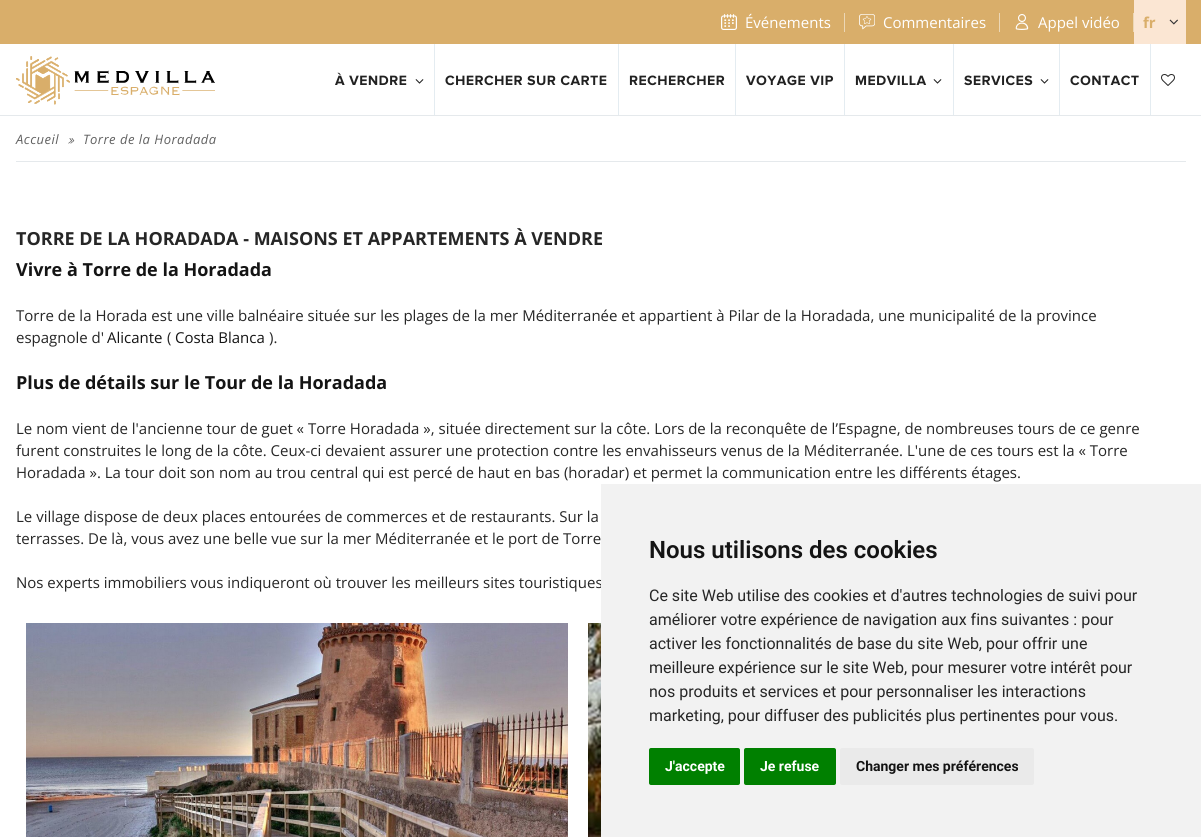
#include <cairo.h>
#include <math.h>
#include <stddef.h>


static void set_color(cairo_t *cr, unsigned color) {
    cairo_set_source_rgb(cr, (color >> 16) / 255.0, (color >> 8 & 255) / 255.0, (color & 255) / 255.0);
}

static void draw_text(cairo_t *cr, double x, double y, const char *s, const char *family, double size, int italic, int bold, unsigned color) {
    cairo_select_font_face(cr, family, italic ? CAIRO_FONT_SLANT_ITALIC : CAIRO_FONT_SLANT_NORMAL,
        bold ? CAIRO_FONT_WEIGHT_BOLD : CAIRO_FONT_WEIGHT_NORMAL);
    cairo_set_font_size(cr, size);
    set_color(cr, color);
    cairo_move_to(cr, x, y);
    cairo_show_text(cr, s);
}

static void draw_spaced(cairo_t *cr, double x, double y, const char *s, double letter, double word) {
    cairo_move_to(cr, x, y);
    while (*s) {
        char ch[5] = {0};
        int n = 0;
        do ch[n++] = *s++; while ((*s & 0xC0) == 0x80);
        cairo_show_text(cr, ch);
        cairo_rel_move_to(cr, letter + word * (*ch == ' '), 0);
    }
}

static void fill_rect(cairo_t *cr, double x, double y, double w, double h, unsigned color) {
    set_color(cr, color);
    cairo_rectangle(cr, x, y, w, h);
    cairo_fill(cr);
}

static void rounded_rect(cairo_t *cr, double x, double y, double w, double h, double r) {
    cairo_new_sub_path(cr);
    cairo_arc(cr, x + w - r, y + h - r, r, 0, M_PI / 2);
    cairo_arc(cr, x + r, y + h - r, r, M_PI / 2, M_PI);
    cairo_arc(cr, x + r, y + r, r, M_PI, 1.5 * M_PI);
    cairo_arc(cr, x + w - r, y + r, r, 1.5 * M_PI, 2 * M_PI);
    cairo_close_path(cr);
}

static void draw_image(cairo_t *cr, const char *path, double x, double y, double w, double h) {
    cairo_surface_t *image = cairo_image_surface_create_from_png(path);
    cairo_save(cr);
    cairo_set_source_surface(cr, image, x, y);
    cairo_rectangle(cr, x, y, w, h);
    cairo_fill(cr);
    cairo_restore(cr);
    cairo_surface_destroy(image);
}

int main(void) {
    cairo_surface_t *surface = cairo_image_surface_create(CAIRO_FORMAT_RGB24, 1201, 837);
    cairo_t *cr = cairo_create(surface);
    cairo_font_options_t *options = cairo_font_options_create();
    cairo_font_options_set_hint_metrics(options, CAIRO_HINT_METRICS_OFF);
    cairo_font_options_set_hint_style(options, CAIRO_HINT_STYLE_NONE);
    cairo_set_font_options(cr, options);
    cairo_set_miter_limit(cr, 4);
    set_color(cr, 0xFFFFFF);
    cairo_paint(cr);
    fill_rect(cr, 0, 0, 1201, 44, 0xD9AE6A);
    draw_image(cr, "assets/img1.png", 721, 14, 16, 16);
    draw_text(cr, 745, 28, "Événements", "Open Sans", 15, 0, 0, 0xFFFFFF);
    fill_rect(cr, 844, 13, 1, 19, 0xECD7B5);
    draw_image(cr, "assets/img2.png", 859, 14, 16, 16);
    draw_text(cr, 883, 28, "Commentaires", "Open Sans", 15, 0, 0, 0xFFFFFF);
    fill_rect(cr, 999, 13, 1, 19, 0xECD7B5);
    draw_image(cr, "assets/img3.png", 1015, 14, 14, 16);
    draw_text(cr, 1038, 28, "Appel vidéo", "Open Sans", 15, 0, 0, 0xFFFFFF);
    fill_rect(cr, 1133, 13, 1, 19, 0xECD7B5);
    fill_rect(cr, 1134, 0, 52, 44, 0xFBE6D3);
    draw_text(cr, 1143, 28, "fr", "Open Sans", 15, 0, 1, 0xD9AE6A);
    draw_image(cr, "assets/img4.png", 1169, 19, 9, 6);
    draw_image(cr, "assets/img5.png", 16, 56, 199, 49);
    draw_image(cr, "assets/img6.png", 335, 72, 72, 13);
    draw_image(cr, "assets/img7.png", 415, 79, 9, 5);
    fill_rect(cr, 434, 44, 1, 71, 0xE4ECF1);
    draw_image(cr, "assets/img8.png", 445, 75, 162, 11);
    fill_rect(cr, 618, 44, 1, 71, 0xE4ECF1);
    draw_image(cr, "assets/img9.png", 629, 75, 96, 11);
    fill_rect(cr, 735, 44, 1, 71, 0xE4ECF1);
    draw_image(cr, "assets/img10.png", 746, 75, 88, 11);
    fill_rect(cr, 844, 44, 1, 71, 0xE4ECF1);
    draw_image(cr, "assets/img11.png", 855, 75, 72, 10);
    draw_image(cr, "assets/img7.png", 933, 79, 9, 5);
    fill_rect(cr, 953, 44, 1, 71, 0xE4ECF1);
    draw_image(cr, "assets/img12.png", 964, 75, 69, 11);
    draw_image(cr, "assets/img7.png", 1040, 79, 9, 5);
    fill_rect(cr, 1059, 44, 1, 71, 0xE4ECF1);
    draw_image(cr, "assets/img13.png", 1070, 75, 69, 11);
    fill_rect(cr, 1150, 44, 1, 71, 0xE4ECF1);
    draw_image(cr, "assets/img14.png", 1161, 74, 14, 12);
    fill_rect(cr, 0, 115, 1201, 1, 0xE5E9EC);
    fill_rect(cr, 16, 161, 1170, 1, 0xE5E9EC);
    cairo_select_font_face(cr, "Open Sans", CAIRO_FONT_SLANT_ITALIC, CAIRO_FONT_WEIGHT_NORMAL);
    cairo_set_font_size(cr, 13);
    set_color(cr, 0x616161);
    draw_spaced(cr, 16, 144, "Accueil", 0.5, 0);
    draw_image(cr, "assets/img15.png", 68, 138, 7, 6);
    draw_spaced(cr, 83, 144, "Torre de la Horadada", 0.5, 0);
    draw_text(cr, 16, 245, "TORRE DE LA HORADADA - MAISONS ET APPARTEMENTS À VENDRE", "Open Sans", 18, 0, 1, 0x262626);
    draw_text(cr, 16, 276, "Vivre à Torre de la Horadada", "Open Sans", 18, 0, 1, 0x141414);
    draw_text(cr, 16, 321, "Torre de la Horada est une ville balnéaire située sur les plages de la mer Méditerranée et appartient à Pilar de la Horadada, une municipalité de la province", "Open Sans", 15, 0, 0, 0x262626);
    draw_text(cr, 16, 343, "espagnole d'", "Open Sans", 15, 0, 0, 0x262626);
    draw_text(cr, 107, 343, "Alicante", "Open Sans", 15, 0, 0, 0x141414);
    draw_text(cr, 167, 343, "(", "Open Sans", 15, 0, 0, 0x262626);
    draw_text(cr, 175, 343, "Costa Blanca", "Open Sans", 15, 0, 0, 0x141414);
    draw_text(cr, 269, 343, ").", "Open Sans", 15, 0, 0, 0x262626);
    draw_text(cr, 16, 389, "Plus de détails sur le Tour de la Horadada", "Open Sans", 18, 0, 1, 0x141414);
    draw_text(cr, 16, 434, "Le nom vient de l'ancienne tour de guet « Torre Horadada », située directement sur la côte. Lors de la reconquête de l’Espagne, de nombreuses tours de ce genre", "Open Sans", 15, 0, 0, 0x262626);
    draw_text(cr, 16, 456, "furent construites le long de la côte. Ceux-ci devaient assurer une protection contre les envahisseurs venus de la Méditerranée. L'une de ces tours est la « Torre", "Open Sans", 15, 0, 0, 0x262626);
    draw_text(cr, 16, 478, "Horadada ». La tour doit son nom au trou central qui est percé de haut en bas (horadar) et permet la communication entre les différents étages.", "Open Sans", 15, 0, 0, 0x262626);
    draw_text(cr, 16, 522, "Le village dispose de deux places entourées de commerces et de restaurants. Sur la", "Open Sans", 15, 0, 0, 0x262626);
    draw_text(cr, 16, 544, "terrasses. De là, vous avez une belle vue sur la mer Méditerranée et le port de Torre", "Open Sans", 15, 0, 0, 0x262626);
    draw_text(cr, 16, 588, "Nos experts immobiliers vous indiqueront où trouver les meilleurs sites touristiques", "Open Sans", 15, 0, 0, 0x262626);
    draw_image(cr, "assets/img16.png", 26, 623, 542, 214);
    draw_image(cr, "assets/img17.png", 588, 623, 13, 214);
    fill_rect(cr, 601, 484, 600, 353, 0xF2F2F2);
    draw_text(cr, 649, 558, "Nous utilisons des cookies", "Roboto SemiBold", 24, 0, 0, 0x141414);
    draw_text(cr, 649, 601, "Ce site Web utilise des cookies et d'autres technologies de suivi pour", "Roboto", 16, 0, 0, 0x262626);
    draw_text(cr, 649, 625, "améliorer votre expérience de navigation aux fins suivantes : pour", "Roboto", 16, 0, 0, 0x262626);
    draw_text(cr, 649, 649, "activer les fonctionnalités de base du site Web, pour offrir une", "Roboto", 16, 0, 0, 0x262626);
    draw_text(cr, 649, 673, "meilleure expérience sur le site Web, pour mesurer votre intérêt pour", "Roboto", 16, 0, 0, 0x262626);
    draw_text(cr, 649, 697, "nos produits et services et pour personnaliser les interactions", "Roboto", 16, 0, 0, 0x262626);
    draw_text(cr, 649, 721, "marketing, pour diffuser des publicités plus pertinentes pour vous.", "Roboto", 16, 0, 0, 0x262626);
    set_color(cr, 0x008000);
    rounded_rect(cr, 649, 748, 91, 37, 2);
    cairo_fill(cr);
    draw_text(cr, 665, 771, "J'accepte", "Roboto", 14, 0, 1, 0xFFFFFF);
    set_color(cr, 0x008000);
    rounded_rect(cr, 744, 748, 92, 37, 2);
    cairo_fill(cr);
    draw_text(cr, 760, 771, "Je refuse", "Roboto", 14, 0, 1, 0xFFFFFF);
    set_color(cr, 0xEAEAEA);
    rounded_rect(cr, 840, 748, 194, 37, 2);
    cairo_fill(cr);
    draw_text(cr, 856, 771, "Changer mes préférences", "Roboto", 14, 0, 1, 0x141414);
    cairo_surface_write_to_png(surface, "output.png");
    cairo_font_options_destroy(options);
    cairo_destroy(cr);
    cairo_surface_destroy(surface);
    return 0;
}
